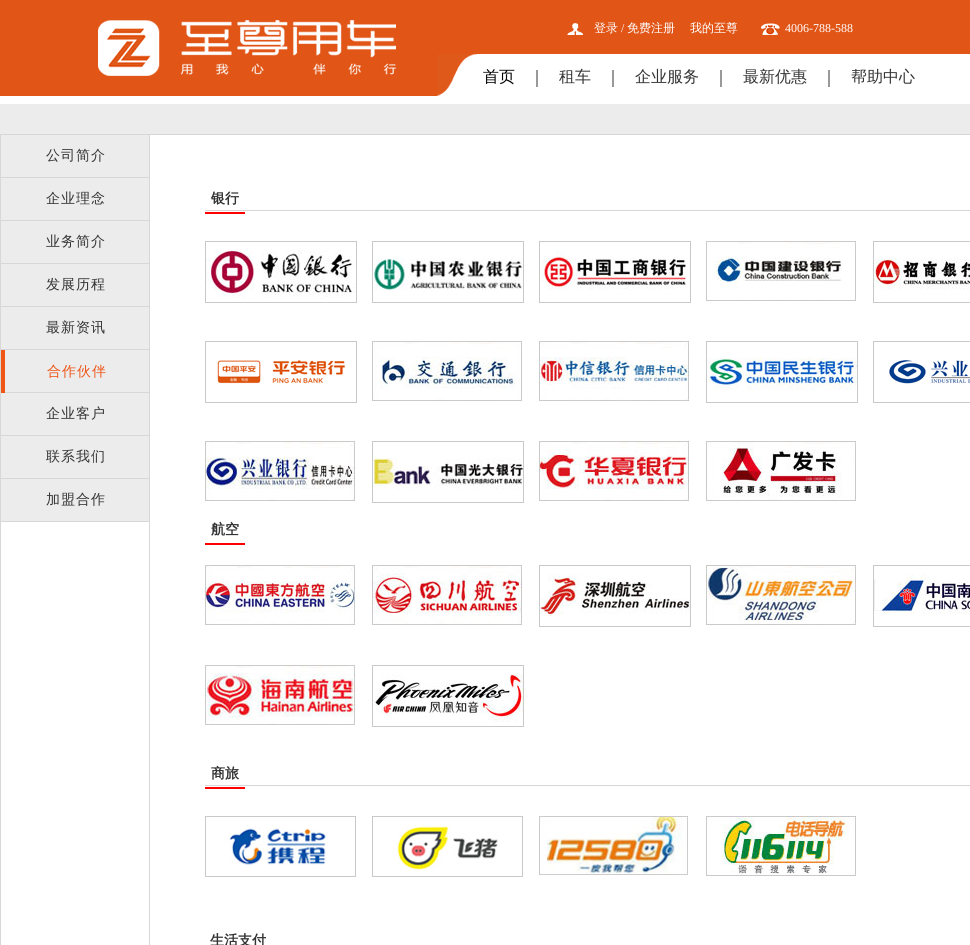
#include <cairo.h>
#include <math.h>
#include <stddef.h>


static void set_color(cairo_t *cr, unsigned color) {
    cairo_set_source_rgb(cr, (color >> 16) / 255.0, (color >> 8 & 255) / 255.0, (color & 255) / 255.0);
}

static void draw_text(cairo_t *cr, double x, double y, const char *s, const char *family, double size, int italic, int bold, unsigned color) {
    cairo_select_font_face(cr, family, italic ? CAIRO_FONT_SLANT_ITALIC : CAIRO_FONT_SLANT_NORMAL,
        bold ? CAIRO_FONT_WEIGHT_BOLD : CAIRO_FONT_WEIGHT_NORMAL);
    cairo_set_font_size(cr, size);
    set_color(cr, color);
    cairo_move_to(cr, x, y);
    cairo_show_text(cr, s);
}

static void draw_spaced(cairo_t *cr, double x, double y, const char *s, double letter, double word) {
    cairo_move_to(cr, x, y);
    while (*s) {
        char ch[5] = {0};
        int n = 0;
        do ch[n++] = *s++; while ((*s & 0xC0) == 0x80);
        cairo_show_text(cr, ch);
        cairo_rel_move_to(cr, letter + word * (*ch == ' '), 0);
    }
}

static void fill_rect(cairo_t *cr, double x, double y, double w, double h, unsigned color) {
    set_color(cr, color);
    cairo_rectangle(cr, x, y, w, h);
    cairo_fill(cr);
}

static void draw_image(cairo_t *cr, const char *path, double x, double y, double w, double h) {
    cairo_surface_t *image = cairo_image_surface_create_from_png(path);
    cairo_save(cr);
    cairo_set_source_surface(cr, image, x, y);
    cairo_rectangle(cr, x, y, w, h);
    cairo_fill(cr);
    cairo_restore(cr);
    cairo_surface_destroy(image);
}

int main(void) {
    cairo_surface_t *surface = cairo_image_surface_create(CAIRO_FORMAT_RGB24, 970, 945);
    cairo_t *cr = cairo_create(surface);
    cairo_font_options_t *options = cairo_font_options_create();
    cairo_font_options_set_hint_metrics(options, CAIRO_HINT_METRICS_OFF);
    cairo_font_options_set_hint_style(options, CAIRO_HINT_STYLE_NONE);
    cairo_set_font_options(cr, options);
    cairo_set_miter_limit(cr, 4);
    set_color(cr, 0xE15517);
    cairo_paint(cr);
    draw_image(cr, "assets/img1.png", 98, 20, 298, 56);
    draw_image(cr, "assets/img2.png", 567, 23, 16, 12);
    draw_text(cr, 594, 32, "登录", "WenQuanYi Zen Hei Medium", 12, 0, 0, 0xFFFFFF);
    draw_text(cr, 621, 32, "/", "Liberation Serif", 12, 0, 0, 0xFFFFFF);
    draw_text(cr, 627, 32, "免费注册", "WenQuanYi Zen Hei Medium", 12, 0, 0, 0xFFFFFF);
    draw_text(cr, 690, 32, "我的至尊", "WenQuanYi Zen Hei Medium", 12, 0, 0, 0xFFFFFF);
    draw_image(cr, "assets/img3.png", 761, 23, 19, 12);
    draw_text(cr, 785, 32, "4006-788-588", "Liberation Serif", 12, 0, 0, 0xFFFFFF);
    fill_rect(cr, 477, 54, 493, 42, 0xFFFFFF);
    draw_image(cr, "assets/img4.png", 437, 54, 40, 42);
    draw_text(cr, 483, 82, "首页", "WenQuanYi Zen Hei Medium", 16, 0, 0, 0x000000);
    fill_rect(cr, 536, 70, 2, 17, 0x999999);
    draw_text(cr, 559, 82, "租车", "WenQuanYi Zen Hei Medium", 16, 0, 0, 0x333333);
    fill_rect(cr, 612, 70, 2, 17, 0x999999);
    draw_text(cr, 635, 82, "企业服务", "WenQuanYi Zen Hei Medium", 16, 0, 0, 0x333333);
    fill_rect(cr, 720, 70, 2, 17, 0x999999);
    draw_text(cr, 743, 82, "最新优惠", "WenQuanYi Zen Hei Medium", 16, 0, 0, 0x333333);
    fill_rect(cr, 828, 70, 2, 17, 0x999999);
    draw_text(cr, 851, 82, "帮助中心", "WenQuanYi Zen Hei Medium", 16, 0, 0, 0x333333);
    fill_rect(cr, 0, 96, 970, 8, 0xFFFFFF);
    fill_rect(cr, 0, 104, 970, 30, 0xECECEC);
    fill_rect(cr, 1, 522, 148, 423, 0xFFFFFF);
    cairo_rectangle(cr, 0.5, 134.5, 149, 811);
    set_color(cr, 0xD7D7D7);
    cairo_set_line_width(cr, 1);
    cairo_stroke(cr);
    fill_rect(cr, 1, 135, 148, 42, 0xECECEC);
    fill_rect(cr, 1, 177, 148, 1, 0xD7D7D7);
    cairo_set_font_size(cr, 14);
    set_color(cr, 0x333333);
    draw_spaced(cr, 46, 160, "公司简介", 1, 0);
    fill_rect(cr, 1, 178, 148, 42, 0xECECEC);
    fill_rect(cr, 1, 220, 148, 1, 0xD7D7D7);
    set_color(cr, 0x333333);
    draw_spaced(cr, 46, 203, "企业理念", 1, 0);
    fill_rect(cr, 1, 221, 148, 42, 0xECECEC);
    fill_rect(cr, 1, 263, 148, 1, 0xD7D7D7);
    set_color(cr, 0x333333);
    draw_spaced(cr, 46, 246, "业务简介", 1, 0);
    fill_rect(cr, 1, 264, 148, 42, 0xECECEC);
    fill_rect(cr, 1, 306, 148, 1, 0xD7D7D7);
    set_color(cr, 0x333333);
    draw_spaced(cr, 46, 289, "发展历程", 1, 0);
    fill_rect(cr, 1, 307, 148, 42, 0xECECEC);
    fill_rect(cr, 1, 349, 148, 1, 0xD7D7D7);
    set_color(cr, 0x333333);
    draw_spaced(cr, 46, 332, "最新资讯", 1, 0);
    fill_rect(cr, 5, 350, 144, 42, 0xECECEC);
    fill_rect(cr, 1, 392, 148, 1, 0xD7D7D7);
    fill_rect(cr, 1, 350, 4, 43, 0xEE5517);
    draw_spaced(cr, 47, 376, "合作伙伴", 1, 0);
    fill_rect(cr, 1, 393, 148, 42, 0xECECEC);
    fill_rect(cr, 1, 435, 148, 1, 0xD7D7D7);
    set_color(cr, 0x333333);
    draw_spaced(cr, 46, 418, "企业客户", 1, 0);
    fill_rect(cr, 1, 436, 148, 42, 0xECECEC);
    fill_rect(cr, 1, 478, 148, 1, 0xD7D7D7);
    set_color(cr, 0x333333);
    draw_spaced(cr, 46, 461, "联系我们", 1, 0);
    fill_rect(cr, 1, 479, 148, 42, 0xECECEC);
    fill_rect(cr, 1, 521, 148, 1, 0xD7D7D7);
    set_color(cr, 0x333333);
    draw_spaced(cr, 46, 504, "加盟合作", 1, 0);
    fill_rect(cr, 150, 135, 820, 810, 0xFFFFFF);
    fill_rect(cr, 150, 134, 820, 1, 0xD7D7D7);
    fill_rect(cr, 205, 212, 40, 2, 0xFF0000);
    draw_text(cr, 211, 203, "银行", "WenQuanYi Zen Hei", 14, 0, 1, 0x333333);
    fill_rect(cr, 205, 210, 765, 1, 0xD7D7D7);
    cairo_rectangle(cr, 205.5, 241.5, 151, 61);
    set_color(cr, 0xC9C9C9);
    cairo_stroke(cr);
    draw_image(cr, "assets/img5.png", 206, 250, 150, 48);
    cairo_rectangle(cr, 372.5, 241.5, 151, 61);
    cairo_stroke(cr);
    draw_image(cr, "assets/img6.png", 373, 258, 150, 32);
    cairo_rectangle(cr, 539.5, 241.5, 151, 61);
    cairo_stroke(cr);
    draw_image(cr, "assets/img7.png", 540, 250, 150, 40);
    draw_image(cr, "assets/img8.png", 706, 241, 150, 60);
    cairo_rectangle(cr, 873.5, 241.5, 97, 61);
    cairo_stroke(cr);
    draw_image(cr, "assets/img9.png", 874, 258, 96, 32);
    cairo_rectangle(cr, 205.5, 341.5, 151, 61);
    cairo_stroke(cr);
    draw_image(cr, "assets/img10.png", 217, 360, 128, 29);
    draw_image(cr, "assets/img11.png", 372, 341, 150, 60);
    draw_image(cr, "assets/img12.png", 539, 341, 150, 60);
    cairo_rectangle(cr, 706.5, 341.5, 151, 61);
    cairo_stroke(cr);
    draw_image(cr, "assets/img13.png", 707, 358, 150, 32);
    cairo_rectangle(cr, 873.5, 341.5, 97, 61);
    cairo_stroke(cr);
    draw_image(cr, "assets/img14.png", 889, 360, 81, 25);
    draw_image(cr, "assets/img15.png", 205, 441, 150, 60);
    cairo_rectangle(cr, 372.5, 441.5, 151, 61);
    cairo_stroke(cr);
    draw_image(cr, "assets/img16.png", 373, 458, 150, 32);
    draw_image(cr, "assets/img17.png", 539, 441, 150, 60);
    draw_image(cr, "assets/img18.png", 706, 441, 150, 60);
    fill_rect(cr, 205, 543, 40, 2, 0xFF0000);
    draw_text(cr, 211, 534, "航空", "WenQuanYi Zen Hei", 14, 0, 1, 0x333333);
    draw_image(cr, "assets/img19.png", 205, 565, 150, 60);
    draw_image(cr, "assets/img20.png", 372, 565, 150, 60);
    cairo_rectangle(cr, 539.5, 565.5, 151, 61);
    set_color(cr, 0xC9C9C9);
    cairo_stroke(cr);
    draw_image(cr, "assets/img21.png", 540, 574, 150, 40);
    draw_image(cr, "assets/img22.png", 706, 565, 150, 60);
    cairo_rectangle(cr, 873.5, 565.5, 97, 61);
    cairo_stroke(cr);
    draw_image(cr, "assets/img23.png", 874, 574, 96, 40);
    draw_image(cr, "assets/img24.png", 205, 665, 150, 60);
    cairo_rectangle(cr, 372.5, 665.5, 151, 61);
    cairo_stroke(cr);
    draw_image(cr, "assets/img25.png", 373, 674, 150, 48);
    fill_rect(cr, 205, 787, 40, 2, 0xFF0000);
    draw_text(cr, 211, 778, "商旅", "WenQuanYi Zen Hei", 14, 0, 1, 0x333333);
    fill_rect(cr, 205, 785, 765, 1, 0xD7D7D7);
    cairo_rectangle(cr, 205.5, 816.5, 150, 60);
    set_color(cr, 0xC9C9C9);
    cairo_stroke(cr);
    draw_image(cr, "assets/img26.png", 229, 828, 97, 37);
    cairo_rectangle(cr, 372.5, 816.5, 150, 60);
    cairo_stroke(cr);
    draw_image(cr, "assets/img27.png", 397, 826, 101, 44);
    draw_image(cr, "assets/img28.png", 539, 816, 149, 59);
    draw_image(cr, "assets/img29.png", 706, 816, 150, 60);
    draw_text(cr, 210, 945, "生活支付", "WenQuanYi Zen Hei", 14, 0, 1, 0x333333);
    cairo_surface_write_to_png(surface, "output.png");
    cairo_font_options_destroy(options);
    cairo_destroy(cr);
    cairo_surface_destroy(surface);
    return 0;
}
